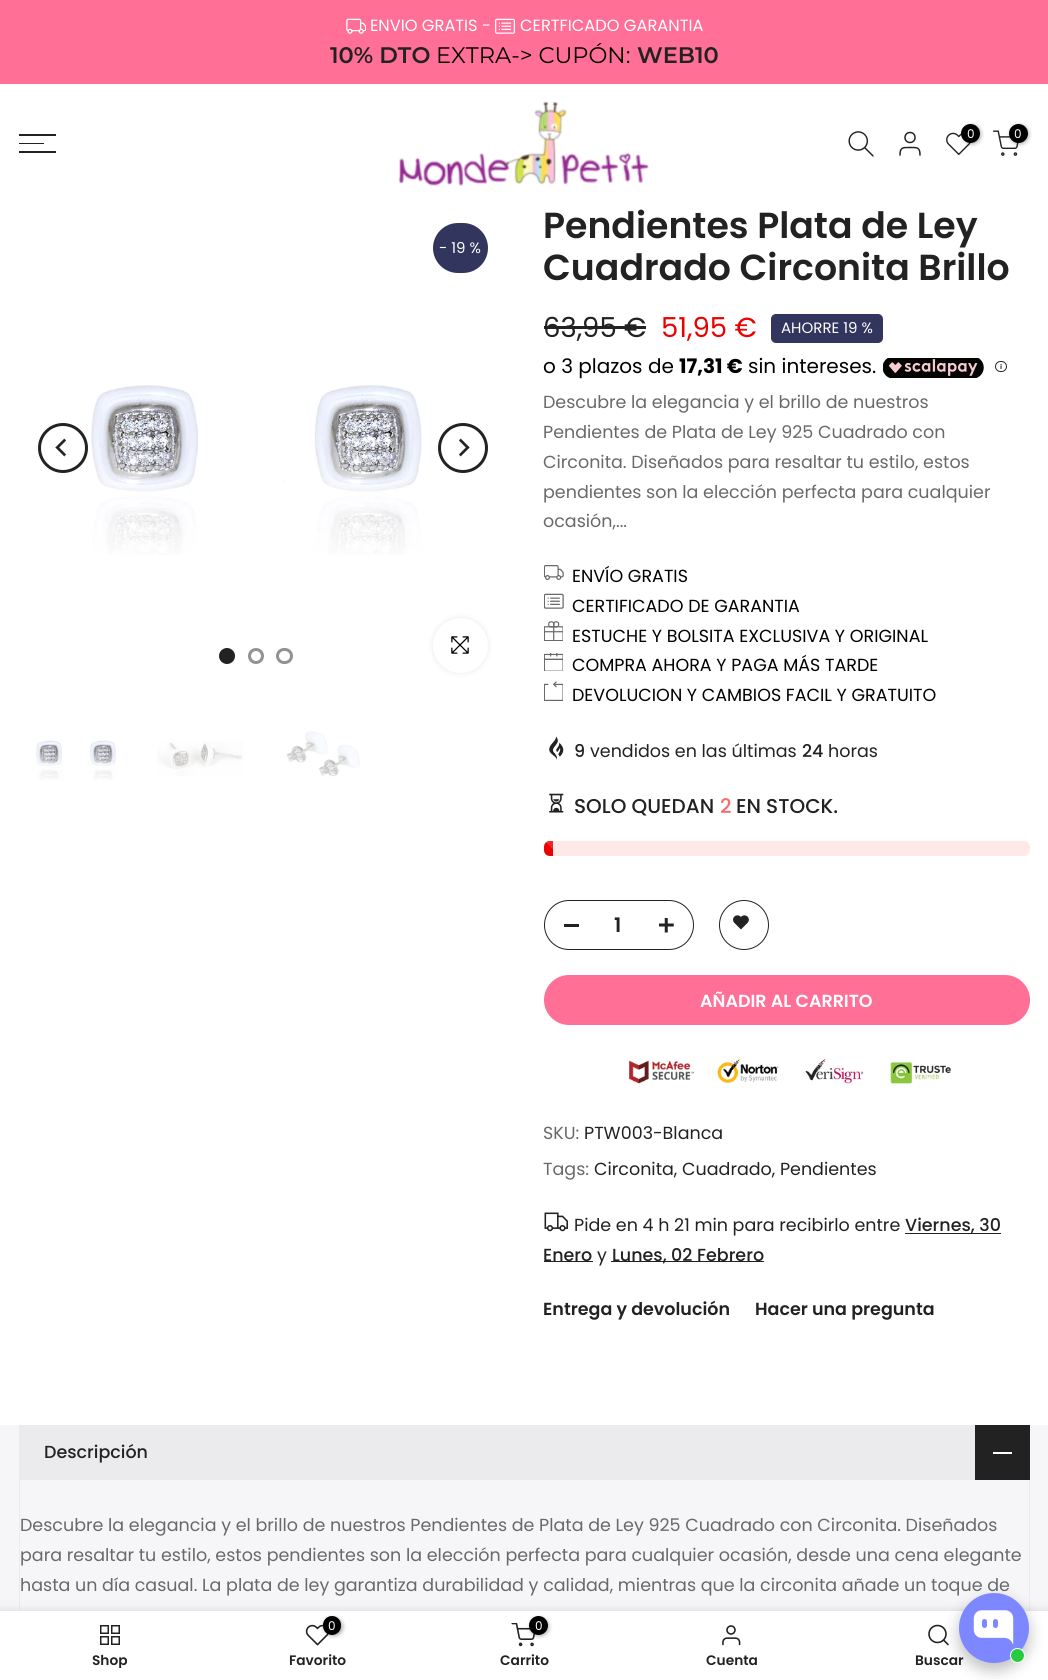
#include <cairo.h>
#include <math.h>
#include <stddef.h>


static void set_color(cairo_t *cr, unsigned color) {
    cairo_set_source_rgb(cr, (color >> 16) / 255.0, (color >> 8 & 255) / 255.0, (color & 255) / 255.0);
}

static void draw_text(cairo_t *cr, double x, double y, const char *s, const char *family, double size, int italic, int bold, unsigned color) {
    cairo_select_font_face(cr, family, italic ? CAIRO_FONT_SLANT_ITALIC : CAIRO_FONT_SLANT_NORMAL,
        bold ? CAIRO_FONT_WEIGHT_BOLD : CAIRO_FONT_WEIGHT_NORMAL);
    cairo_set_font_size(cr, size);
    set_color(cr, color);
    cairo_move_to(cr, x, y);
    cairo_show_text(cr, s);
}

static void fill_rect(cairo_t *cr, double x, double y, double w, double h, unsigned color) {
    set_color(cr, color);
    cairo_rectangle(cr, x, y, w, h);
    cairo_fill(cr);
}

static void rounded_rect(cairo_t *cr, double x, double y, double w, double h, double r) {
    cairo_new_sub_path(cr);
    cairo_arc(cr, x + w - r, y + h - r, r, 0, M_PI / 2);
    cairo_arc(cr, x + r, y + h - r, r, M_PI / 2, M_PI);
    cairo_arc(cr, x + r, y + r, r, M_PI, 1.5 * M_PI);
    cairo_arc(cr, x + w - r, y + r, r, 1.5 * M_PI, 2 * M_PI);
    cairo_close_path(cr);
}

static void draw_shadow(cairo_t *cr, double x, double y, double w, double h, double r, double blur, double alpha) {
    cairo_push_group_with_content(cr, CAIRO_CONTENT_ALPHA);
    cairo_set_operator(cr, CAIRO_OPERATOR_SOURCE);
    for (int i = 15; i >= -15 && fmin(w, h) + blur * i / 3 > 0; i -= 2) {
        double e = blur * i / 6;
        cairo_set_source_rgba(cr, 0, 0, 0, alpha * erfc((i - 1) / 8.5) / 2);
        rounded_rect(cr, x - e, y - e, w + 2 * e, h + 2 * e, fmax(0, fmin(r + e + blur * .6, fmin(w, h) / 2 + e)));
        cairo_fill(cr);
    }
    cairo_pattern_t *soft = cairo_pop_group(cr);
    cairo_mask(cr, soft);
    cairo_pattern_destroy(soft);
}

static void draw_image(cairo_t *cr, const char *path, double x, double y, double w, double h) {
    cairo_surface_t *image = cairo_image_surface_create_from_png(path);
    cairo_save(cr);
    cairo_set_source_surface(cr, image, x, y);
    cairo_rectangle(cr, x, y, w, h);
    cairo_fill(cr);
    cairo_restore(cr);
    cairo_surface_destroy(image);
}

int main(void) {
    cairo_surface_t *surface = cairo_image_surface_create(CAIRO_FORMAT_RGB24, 1048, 1680);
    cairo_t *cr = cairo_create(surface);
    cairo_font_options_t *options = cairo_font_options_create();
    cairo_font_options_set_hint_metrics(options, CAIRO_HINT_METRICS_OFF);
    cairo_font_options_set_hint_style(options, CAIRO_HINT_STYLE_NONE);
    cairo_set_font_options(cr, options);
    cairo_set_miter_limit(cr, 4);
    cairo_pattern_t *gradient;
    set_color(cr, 0xFFFFFF);
    cairo_paint(cr);
    fill_rect(cr, 0, 0, 1048, 84, 0xFF6F96);
    draw_image(cr, "assets/img1.png", 346, 18, 20, 16);
    draw_text(cr, 370, 31, "ENVIO GRATIS -", "Poppins", 16.25, 0, 0, 0xFFFFFF);
    draw_image(cr, "assets/img2.png", 495, 18, 20, 16);
    draw_text(cr, 520, 31, "CERTFICADO GARANTIA", "Poppins", 16.25, 0, 0, 0xFFFFFF);
    draw_text(cr, 330, 63, "10% DTO", "Montserrat SemiBold", 22.5, 0, 0, 0x222222);
    draw_text(cr, 436, 63, "EXTRA-> CUPÓN:", "Montserrat", 22.5, 0, 0, 0x000000);
    draw_text(cr, 637, 63, "WEB10", "Montserrat SemiBold", 22.5, 0, 0, 0x222222);
    draw_image(cr, "assets/img3.png", 398, 101, 251, 85);
    draw_image(cr, "assets/img4.png", 848, 131, 26, 26);
    cairo_arc(cr, 910, 137.5, 5, 0, 2 * M_PI);
    cairo_set_line_width(cr, 1.5);
    cairo_stroke(cr);
    cairo_new_path(cr);
    cairo_move_to(cr, 920, 155);
    cairo_curve_to(cr, 920, 147, 917, 147.5, 910, 147.5);
    cairo_curve_to(cr, 903, 147.5, 900, 147, 900, 155);
    cairo_set_line_cap(cr, CAIRO_LINE_CAP_ROUND);
    cairo_set_line_join(cr, CAIRO_LINE_JOIN_ROUND);
    cairo_stroke(cr);
    draw_image(cr, "assets/img5.png", 946, 132, 25, 23);
    set_color(cr, 0x000000);
    draw_shadow(cr, 963, 125, 18, 19, 9, 2, 0.3);
    set_color(cr, 0x000000);
    cairo_arc(cr, 970.5, 133.5, 9.5, 0, 2 * M_PI);
    cairo_fill(cr);
    draw_text(cr, 967, 138, "0", "Poppins", 12, 0, 0, 0xFFFFFF);
    draw_image(cr, "assets/img6.png", 993, 130, 26, 26);
    set_color(cr, 0x000000);
    draw_shadow(cr, 1010, 125, 19, 19, 9.5, 2, 0.3);
    set_color(cr, 0x000000);
    cairo_arc(cr, 1018.5, 133.5, 9.5, 0, 2 * M_PI);
    cairo_fill(cr);
    draw_text(cr, 1014, 138, "0", "Poppins", 12, 0, 0, 0xFFFFFF);
    fill_rect(cr, 19, 134, 37, 2, 0x222222);
    fill_rect(cr, 19, 143, 25, 1, 0x222222);
    fill_rect(cr, 19, 151, 37, 2, 0x222222);
    set_color(cr, 0x32355D);
    rounded_rect(cr, 433, 223, 55, 50, 25);
    cairo_fill(cr);
    draw_text(cr, 439, 253, "- 19 %", "Poppins", 15, 0, 0, 0xFFFFFF);
    cairo_new_path(cr);
    cairo_arc(cr, 63, 448, 23.5, 0, 2 * M_PI);
    set_color(cr, 0x222222);
    cairo_set_line_width(cr, 3);
    cairo_set_line_cap(cr, CAIRO_LINE_CAP_BUTT);
    cairo_set_line_join(cr, CAIRO_LINE_JOIN_MITER);
    cairo_stroke(cr);
    draw_image(cr, "assets/img7.png", 55, 438, 11, 19);
    draw_image(cr, "assets/img8.png", 91, 385, 331, 170);
    cairo_arc(cr, 463, 448, 23.5, 0, 2 * M_PI);
    cairo_stroke(cr);
    draw_image(cr, "assets/img9.png", 459, 438, 11, 19);
    cairo_arc(cr, 227, 656, 6.5, 0, 2 * M_PI);
    cairo_fill_preserve(cr);
    cairo_stroke(cr);
    cairo_arc(cr, 256, 656, 6.5, 0, 2 * M_PI);
    set_color(cr, 0x919191);
    cairo_stroke(cr);
    rounded_rect(cr, 277.5, 649.5, 14, 13, 6.5);
    cairo_stroke(cr);
    set_color(cr, 0x000000);
    draw_shadow(cr, 433, 618, 55, 55, 27.5, 3, 0.09);
    set_color(cr, 0xFFFFFF);
    cairo_arc(cr, 460.5, 645.5, 27.5, 0, 2 * M_PI);
    cairo_fill(cr);
    draw_image(cr, "assets/img10.png", 451, 636, 18, 18);
    draw_image(cr, "assets/img11.png", 36, 740, 80, 40);
    draw_image(cr, "assets/img12.png", 157, 741, 86, 35);
    draw_image(cr, "assets/img13.png", 286, 731, 74, 46);
    draw_text(cr, 543, 238, "Pendientes Plata de Ley", "Poppins SemiBold", 36.25, 0, 0, 0x222222);
    draw_text(cr, 543, 280, "Cuadrado Circonita Brillo", "Poppins SemiBold", 36.25, 0, 0, 0x222222);
    draw_text(cr, 543, 337, "63,95 €", "Poppins", 27.5, 0, 0, 0x222222);
    fill_rect(cr, 544, 326, 102, 3, 0x222222);
    draw_text(cr, 661, 337, "51,95 €", "Poppins", 27.5, 0, 0, 0xEC0101);
    set_color(cr, 0x32355D);
    rounded_rect(cr, 771, 314, 112, 29, 5);
    cairo_fill(cr);
    draw_text(cr, 781, 333, "AHORRE 19 %", "Poppins", 15, 0, 0, 0xFFFFFF);
    draw_text(cr, 543, 373, "o 3 plazos de", "Poppins", 20, 0, 0, 0x000000);
    draw_text(cr, 679, 373, "17,31 €", "Poppins", 20, 0, 1, 0x000000);
    draw_text(cr, 748, 373, "sin intereses.", "Poppins", 20, 0, 0, 0x000000);
    draw_image(cr, "assets/img14.png", 883, 358, 101, 20);
    draw_image(cr, "assets/img15.png", 995, 361, 12, 11);
    draw_text(cr, 543, 408, "Descubre la elegancia y el brillo de nuestros", "Poppins", 17.5, 0, 0, 0x696969);
    draw_text(cr, 543, 438, "Pendientes de Plata de Ley 925 Cuadrado con", "Poppins", 17.5, 0, 0, 0x696969);
    draw_text(cr, 543, 468, "Circonita. Diseñados para resaltar tu estilo, estos", "Poppins", 17.5, 0, 0, 0x696969);
    draw_text(cr, 543, 498, "pendientes son la elección perfecta para cualquier", "Poppins", 17.5, 0, 0, 0x696969);
    draw_text(cr, 543, 527, "ocasión,...", "Poppins", 17.5, 0, 0, 0x696969);
    draw_image(cr, "assets/img16.png", 544, 565, 20, 15);
    draw_text(cr, 572, 582, "ENVÍO GRATIS", "Poppins", 17.5, 0, 0, 0x000000);
    draw_image(cr, "assets/img17.png", 544, 593, 20, 16);
    draw_text(cr, 572, 612, "CERTIFICADO DE GARANTIA", "Poppins", 17.5, 0, 0, 0x000000);
    draw_image(cr, "assets/img18.png", 544, 621, 19, 20);
    draw_text(cr, 572, 642, "ESTUCHE Y BOLSITA EXCLUSIVA Y ORIGINAL", "Poppins", 17.5, 0, 0, 0x000000);
    draw_image(cr, "assets/img19.png", 544, 653, 19, 18);
    draw_text(cr, 572, 671, "COMPRA AHORA Y PAGA MÁS TARDE", "Poppins", 17.5, 0, 0, 0x000000);
    draw_image(cr, "assets/img20.png", 544, 681, 19, 20);
    draw_text(cr, 572, 701, "DEVOLUCION Y CAMBIOS FACIL Y GRATUITO", "Poppins", 17.5, 0, 0, 0x000000);
    draw_image(cr, "assets/img21.png", 549, 736, 15, 24);
    draw_text(cr, 574, 757, "9", "Poppins Medium", 17.5, 0, 0, 0x222222);
    draw_text(cr, 590, 757, "vendidos en las últimas", "Poppins", 17.5, 0, 0, 0x222222);
    draw_text(cr, 802, 757, "24", "Poppins Medium", 17.5, 0, 0, 0x222222);
    draw_text(cr, 828, 757, "horas", "Poppins", 17.5, 0, 0, 0x222222);
    draw_image(cr, "assets/img22.png", 549, 793, 15, 20);
    draw_text(cr, 574, 813, "SOLO QUEDAN", "Poppins Medium", 20, 0, 0, 0x222222);
    draw_text(cr, 720, 813, "2", "Poppins Medium", 20, 0, 0, 0xF76B6A);
    draw_text(cr, 736, 813, "EN STOCK.", "Poppins Medium", 20, 0, 0, 0x222222);
    set_color(cr, 0xFFE8E8);
    rounded_rect(cr, 544, 841, 486, 15, 6);
    cairo_fill(cr);
    set_color(cr, 0xEC0101);
    cairo_new_path(cr);
    cairo_move_to(cr, 550, 841);
    cairo_line_to(cr, 553, 841);
    cairo_line_to(cr, 553, 856);
    cairo_line_to(cr, 550, 856);
    cairo_curve_to(cr, 546.5, 856, 544, 853.5, 544, 850);
    cairo_line_to(cr, 544, 847);
    cairo_curve_to(cr, 544, 843.5, 546.5, 841, 550, 841);
    cairo_close_path(cr);
    cairo_fill(cr);
    gradient = cairo_pattern_create_linear(544, 891, 594, 841);
    cairo_pattern_add_color_stop_rgba(gradient, 0.25, 1, 1, 1, 0.15);
    cairo_pattern_add_color_stop_rgba(gradient, 0.25, 1, 1, 1, 0);
    cairo_pattern_add_color_stop_rgba(gradient, 0.5, 1, 1, 1, 0);
    cairo_pattern_add_color_stop_rgba(gradient, 0.5, 1, 1, 1, 0.15);
    cairo_pattern_add_color_stop_rgba(gradient, 0.75, 1, 1, 1, 0.15);
    cairo_pattern_add_color_stop_rgba(gradient, 0.75, 1, 1, 1, 0);
    cairo_pattern_add_color_stop_rgba(gradient, 1, 0, 0, 0, 0);
    cairo_set_source(cr, gradient);
    cairo_pattern_destroy(gradient);
    cairo_new_path(cr);
    cairo_move_to(cr, 550, 841);
    cairo_line_to(cr, 553, 841);
    cairo_line_to(cr, 553, 856);
    cairo_line_to(cr, 550, 856);
    cairo_curve_to(cr, 546.5, 856, 544, 853.5, 544, 850);
    cairo_line_to(cr, 544, 847);
    cairo_curve_to(cr, 544, 843.5, 546.5, 841, 550, 841);
    cairo_close_path(cr);
    cairo_fill(cr);
    rounded_rect(cr, 544.5, 900.5, 149, 49, 24.5);
    set_color(cr, 0x222222);
    cairo_set_line_width(cr, 1);
    cairo_stroke(cr);
    fill_rect(cr, 564, 924, 15, 3, 0x222222);
    draw_text(cr, 614, 932, "1", "Poppins SemiBold", 20, 0, 0, 0x222222);
    draw_image(cr, "assets/img23.png", 659, 918, 15, 15);
    cairo_arc(cr, 744, 925, 24.5, 0, 2 * M_PI);
    cairo_stroke(cr);
    draw_image(cr, "assets/img24.png", 733, 915, 16, 15);
    set_color(cr, 0xFF6F96);
    rounded_rect(cr, 544, 975, 486, 50, 25);
    cairo_fill(cr);
    draw_text(cr, 700, 1007, "AÑADIR AL CARRITO", "Poppins SemiBold", 17.5, 0, 0, 0xFFFFFF);
    draw_image(cr, "assets/img25.png", 629, 1058, 322, 26);
    draw_text(cr, 543, 1139, "SKU:", "Poppins", 17.5, 0, 0, 0x696969);
    draw_text(cr, 584, 1139, "PTW003-Blanca", "Poppins", 17.5, 0, 0, 0x222222);
    draw_text(cr, 543, 1175, "Tags:", "Poppins", 17.5, 0, 0, 0x696969);
    draw_text(cr, 594, 1175, "Circonita, Cuadrado, Pendientes", "Poppins", 17.5, 0, 0, 0x222222);
    draw_image(cr, "assets/img26.png", 544, 1212, 24, 20);
    draw_text(cr, 574, 1231, "Pide en 4 h 21 min para recibirlo entre", "Poppins", 17.5, 0, 0, 0x222222);
    fill_rect(cr, 905, 1233, 96, 1, 0x222222);
    draw_text(cr, 905, 1231, "Viernes, 30", "Poppins Medium", 17.5, 0, 0, 0x222222);
    fill_rect(cr, 544, 1261, 49, 1, 0x222222);
    draw_text(cr, 543, 1261, "Enero", "Poppins Medium", 17.5, 0, 0, 0x222222);
    draw_text(cr, 597, 1261, "y", "Poppins", 17.5, 0, 0, 0x222222);
    fill_rect(cr, 611, 1261, 153, 1, 0x222222);
    draw_text(cr, 612, 1261, "Lunes, 02 Febrero", "Poppins Medium", 17.5, 0, 0, 0x222222);
    draw_text(cr, 543, 1315, "Entrega y devolución", "Poppins SemiBold", 17.5, 0, 0, 0x222222);
    draw_text(cr, 755, 1315, "Hacer una pregunta", "Poppins SemiBold", 17.5, 0, 0, 0x222222);
    fill_rect(cr, 0, 1425, 1048, 186, 0xF6F6F8);
    fill_rect(cr, 19, 1425, 956, 55, 0xEBEBED);
    draw_text(cr, 44, 1458, "Descripción", "Poppins Medium", 17.5, 0, 0, 0x222222);
    fill_rect(cr, 975, 1425, 55, 55, 0x222222);
    fill_rect(cr, 993, 1452, 19, 2, 0xFFFFFF);
    set_color(cr, 0xEBEBED);
    cairo_new_path(cr);
    cairo_move_to(cr, 1030, 1480);
    cairo_line_to(cr, 1030, 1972);
    cairo_line_to(cr, 1029, 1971);
    cairo_line_to(cr, 1029, 1480);
    cairo_close_path(cr);
    cairo_fill(cr);
    cairo_new_path(cr);
    cairo_move_to(cr, 19, 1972);
    cairo_line_to(cr, 19, 1480);
    cairo_line_to(cr, 20, 1480);
    cairo_line_to(cr, 20, 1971);
    cairo_close_path(cr);
    cairo_fill(cr);
    draw_text(cr, 20, 1531, "Descubre la elegancia y el brillo de nuestros Pendientes de Plata de Ley 925 Cuadrado con Circonita. Diseñados", "Poppins", 17.5, 0, 0, 0x696969);
    draw_text(cr, 20, 1561, "para resaltar tu estilo, estos pendientes son la elección perfecta para cualquier ocasión, desde una cena elegante", "Poppins", 17.5, 0, 0, 0x696969);
    draw_text(cr, 20, 1591, "hasta un día casual. La plata de ley garantiza durabilidad y calidad, mientras que la circonita añade un toque de", "Poppins", 17.5, 0, 0, 0x696969);
    set_color(cr, 0x000000);
    draw_shadow(cr, 0, 1611, 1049, 69, 0, 5.5, 0.12);
    fill_rect(cr, 0, 1611, 1048, 69, 0xFFFFFF);
    cairo_rectangle(cr, 100.75, 1625.75, 7.5, 7.5);
    set_color(cr, 0x222222);
    cairo_set_line_width(cr, 1.5);
    cairo_stroke(cr);
    cairo_rectangle(cr, 111.75, 1625.75, 7.5, 7.5);
    cairo_stroke(cr);
    cairo_rectangle(cr, 100.75, 1636.75, 7.5, 7.5);
    cairo_stroke(cr);
    cairo_rectangle(cr, 111.75, 1636.75, 7.5, 7.5);
    cairo_stroke(cr);
    cairo_save(cr);
    cairo_rectangle(cr, 19, 1654, 182, 14);
    cairo_clip(cr);
    draw_text(cr, 92, 1665, "Shop", "Poppins SemiBold", 13.75, 0, 0, 0x222222);
    cairo_restore(cr);
    draw_image(cr, "assets/img27.png", 305, 1624, 24, 22);
    set_color(cr, 0x000000);
    draw_shadow(cr, 324, 1618, 19, 18, 9, 2, 0.3);
    set_color(cr, 0x000000);
    rounded_rect(cr, 323, 1616, 18, 19, 9);
    cairo_fill(cr);
    draw_text(cr, 328, 1630, "0", "Poppins", 12, 0, 0, 0xFFFFFF);
    draw_text(cr, 289, 1665, "Favorito", "Poppins SemiBold", 13.75, 0, 0, 0x222222);
    draw_image(cr, "assets/img28.png", 511, 1623, 24, 24);
    set_color(cr, 0x000000);
    draw_shadow(cr, 530, 1618, 19, 18, 9, 2, 0.3);
    set_color(cr, 0x000000);
    cairo_arc(cr, 538.5, 1625.5, 9.5, 0, 2 * M_PI);
    cairo_fill(cr);
    draw_text(cr, 535, 1630, "0", "Poppins", 12, 0, 0, 0xFFFFFF);
    draw_text(cr, 500, 1665, "Carrito", "Poppins SemiBold", 13.75, 0, 0, 0x222222);
    draw_image(cr, "assets/img29.png", 722, 1625, 19, 21);
    draw_text(cr, 706, 1665, "Cuenta", "Poppins SemiBold", 13.75, 0, 0, 0x222222);
    cairo_new_path(cr);
    cairo_arc(cr, 937.5, 1634, 8.5, 0, 2 * M_PI);
    cairo_set_line_width(cr, 1.6);
    cairo_stroke(cr);
    cairo_new_path(cr);
    cairo_move_to(cr, 948, 1644.5);
    cairo_line_to(cr, 943.5, 1640);
    cairo_set_line_cap(cr, CAIRO_LINE_CAP_ROUND);
    cairo_set_line_join(cr, CAIRO_LINE_JOIN_ROUND);
    cairo_stroke(cr);
    draw_text(cr, 915, 1665, "Buscar", "Poppins SemiBold", 13.75, 0, 0, 0x222222);
    set_color(cr, 0x000000);
    draw_shadow(cr, 959, 1600, 70, 70, 35, 7.5, 0.25);
    set_color(cr, 0x7D87FF);
    cairo_arc(cr, 994, 1628, 35, 0, 2 * M_PI);
    cairo_fill(cr);
    draw_image(cr, "assets/img30.png", 973, 1610, 41, 35);
    set_color(cr, 0x27CA40);
    cairo_arc(cr, 1017.5, 1655.5, 7, 0, 2 * M_PI);
    cairo_fill_preserve(cr);
    set_color(cr, 0xFFFFFF);
    cairo_set_line_width(cr, 1);
    cairo_set_line_cap(cr, CAIRO_LINE_CAP_BUTT);
    cairo_set_line_join(cr, CAIRO_LINE_JOIN_MITER);
    cairo_stroke(cr);
    cairo_surface_write_to_png(surface, "output.png");
    cairo_font_options_destroy(options);
    cairo_destroy(cr);
    cairo_surface_destroy(surface);
    return 0;
}
